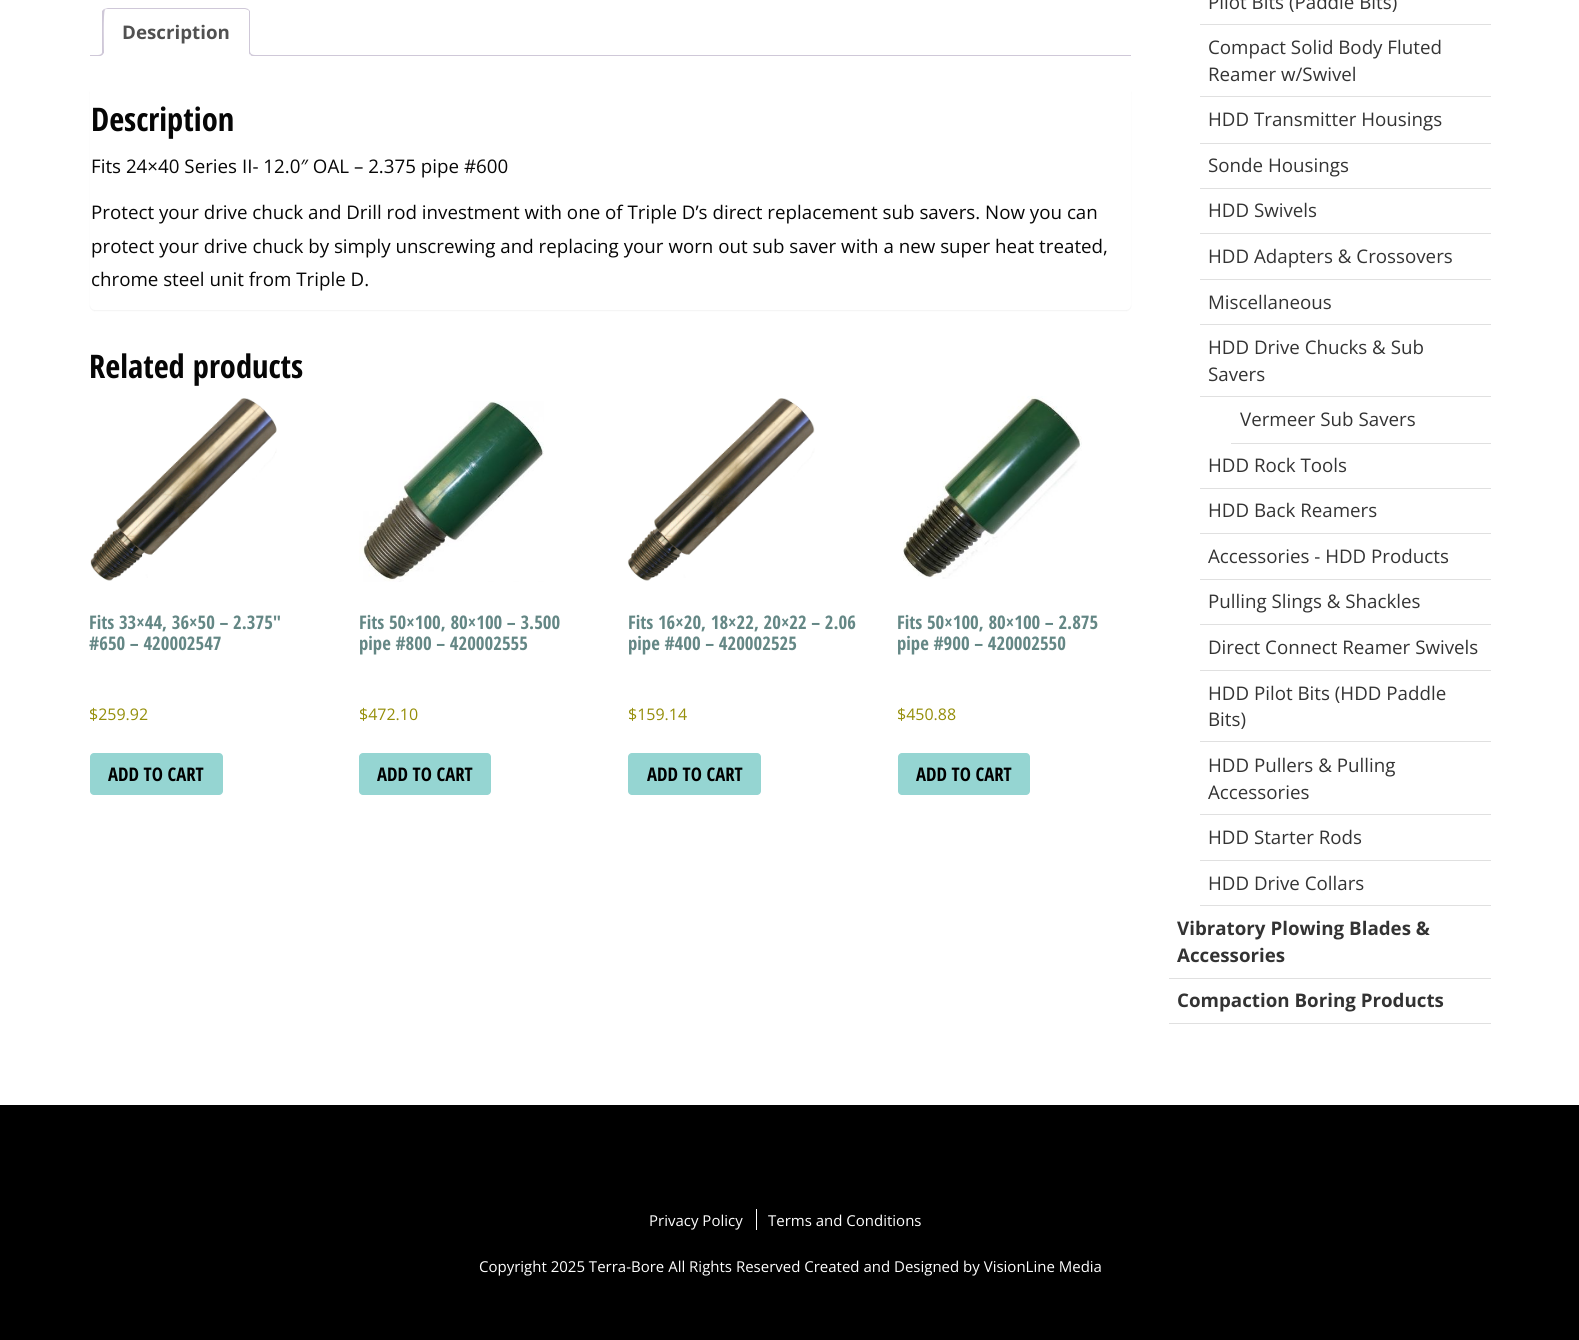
#include <cairo.h>
#include <math.h>
#include <stddef.h>


static void set_color(cairo_t *cr, unsigned color) {
    cairo_set_source_rgb(cr, (color >> 16) / 255.0, (color >> 8 & 255) / 255.0, (color & 255) / 255.0);
}

static void draw_text(cairo_t *cr, double x, double y, const char *s, const char *family, double size, int italic, int bold, unsigned color) {
    cairo_select_font_face(cr, family, italic ? CAIRO_FONT_SLANT_ITALIC : CAIRO_FONT_SLANT_NORMAL,
        bold ? CAIRO_FONT_WEIGHT_BOLD : CAIRO_FONT_WEIGHT_NORMAL);
    cairo_set_font_size(cr, size);
    set_color(cr, color);
    cairo_move_to(cr, x, y);
    cairo_show_text(cr, s);
}

static void fill_rect(cairo_t *cr, double x, double y, double w, double h, unsigned color) {
    set_color(cr, color);
    cairo_rectangle(cr, x, y, w, h);
    cairo_fill(cr);
}

static void rounded_rect(cairo_t *cr, double x, double y, double w, double h, double r) {
    cairo_new_sub_path(cr);
    cairo_arc(cr, x + w - r, y + h - r, r, 0, M_PI / 2);
    cairo_arc(cr, x + r, y + h - r, r, M_PI / 2, M_PI);
    cairo_arc(cr, x + r, y + r, r, M_PI, 1.5 * M_PI);
    cairo_arc(cr, x + w - r, y + r, r, 1.5 * M_PI, 2 * M_PI);
    cairo_close_path(cr);
}

static void draw_shadow(cairo_t *cr, double x, double y, double w, double h, double r, double blur, double alpha) {
    cairo_push_group_with_content(cr, CAIRO_CONTENT_ALPHA);
    cairo_set_operator(cr, CAIRO_OPERATOR_SOURCE);
    for (int i = 15; i >= -15 && fmin(w, h) + blur * i / 3 > 0; i -= 2) {
        double e = blur * i / 6;
        cairo_set_source_rgba(cr, 0, 0, 0, alpha * erfc((i - 1) / 8.5) / 2);
        rounded_rect(cr, x - e, y - e, w + 2 * e, h + 2 * e, fmax(0, fmin(r + e + blur * .6, fmin(w, h) / 2 + e)));
        cairo_fill(cr);
    }
    cairo_pattern_t *soft = cairo_pop_group(cr);
    cairo_mask(cr, soft);
    cairo_pattern_destroy(soft);
}

static void draw_image(cairo_t *cr, const char *path, double x, double y, double w, double h) {
    cairo_surface_t *image = cairo_image_surface_create_from_png(path);
    cairo_save(cr);
    cairo_set_source_surface(cr, image, x, y);
    cairo_rectangle(cr, x, y, w, h);
    cairo_fill(cr);
    cairo_restore(cr);
    cairo_surface_destroy(image);
}

int main(void) {
    cairo_surface_t *surface = cairo_image_surface_create(CAIRO_FORMAT_RGB24, 1579, 1340);
    cairo_t *cr = cairo_create(surface);
    cairo_font_options_t *options = cairo_font_options_create();
    cairo_font_options_set_hint_metrics(options, CAIRO_HINT_METRICS_OFF);
    cairo_font_options_set_hint_style(options, CAIRO_HINT_STYLE_NONE);
    cairo_set_font_options(cr, options);
    cairo_set_miter_limit(cr, 4);
    set_color(cr, 0x000000);
    cairo_paint(cr);
    fill_rect(cr, 0, 0, 1579, 1105, 0xFFFFFF);
    fill_rect(cr, 90, 55, 1041, 1, 0xCFC8D8);
    set_color(cr, 0xFFFFFF);
    cairo_new_path(cr);
    cairo_move_to(cr, 108, 8);
    cairo_line_to(cr, 245, 8);
    cairo_curve_to(cr, 248, 8, 250, 10, 250, 13);
    cairo_line_to(cr, 250, 56);
    cairo_line_to(cr, 103, 56);
    cairo_line_to(cr, 103, 13);
    cairo_curve_to(cr, 103, 10, 105, 8, 108, 8);
    cairo_close_path(cr);
    cairo_fill(cr);
    set_color(cr, 0xCFC8D8);
    cairo_new_path(cr);
    cairo_move_to(cr, 108, 8);
    cairo_line_to(cr, 104, 9);
    cairo_line_to(cr, 105, 10);
    cairo_curve_to(cr, 105, 9, 106, 9, 108, 9);
    cairo_line_to(cr, 245, 9);
    cairo_line_to(cr, 248, 10);
    cairo_line_to(cr, 248, 9);
    cairo_line_to(cr, 245, 8);
    cairo_close_path(cr);
    cairo_fill(cr);
    cairo_new_path(cr);
    cairo_move_to(cr, 250, 56);
    cairo_line_to(cr, 250, 11);
    cairo_line_to(cr, 248, 9);
    cairo_line_to(cr, 248, 10);
    cairo_line_to(cr, 249, 11);
    cairo_line_to(cr, 249, 55);
    cairo_close_path(cr);
    cairo_fill(cr);
    set_color(cr, 0xFFFFFF);
    cairo_new_path(cr);
    cairo_move_to(cr, 250, 56);
    cairo_line_to(cr, 103, 56);
    cairo_line_to(cr, 104, 55);
    cairo_line_to(cr, 249, 55);
    cairo_close_path(cr);
    cairo_fill(cr);
    set_color(cr, 0xCFC8D8);
    cairo_new_path(cr);
    cairo_move_to(cr, 102, 11);
    cairo_line_to(cr, 104, 9);
    cairo_line_to(cr, 105, 10);
    cairo_curve_to(cr, 103, 11, 104, 49, 104, 55);
    cairo_line_to(cr, 102, 56);
    cairo_close_path(cr);
    cairo_fill(cr);
    draw_text(cr, 122, 39, "Description", "Open Sans", 18.75, 0, 1, 0x515151);
    cairo_save(cr);
    cairo_rectangle(cr, 90, 8, 1041, 48);
    cairo_clip(cr);
    set_color(cr, 0xFFFFFF);
    cairo_new_path(cr);
    cairo_move_to(cr, 100, 56);
    cairo_line_to(cr, 100, 59);
    cairo_curve_to(cr, 104, 59, 106, 57, 106, 53);
    cairo_line_to(cr, 103.5, 53);
    cairo_curve_to(cr, 103, 54.5, 101.5, 55.5, 100, 56);
    cairo_close_path(cr);
    cairo_fill(cr);
    cairo_restore(cr);
    set_color(cr, 0xCFC8D8);
    cairo_set_fill_rule(cr, CAIRO_FILL_RULE_EVEN_ODD);
    cairo_new_path(cr);
    cairo_move_to(cr, 97.5, 50);
    cairo_line_to(cr, 104, 50);
    cairo_curve_to(cr, 104, 54.5, 102, 56, 97.5, 56);
    cairo_close_path(cr);
    cairo_move_to(cr, 97.5, 50);
    cairo_line_to(cr, 102.5, 50);
    cairo_curve_to(cr, 102.5, 53.5, 101, 55, 97.5, 55);
    cairo_close_path(cr);
    cairo_fill(cr);
    cairo_save(cr);
    cairo_set_fill_rule(cr, CAIRO_FILL_RULE_WINDING);
    cairo_rectangle(cr, 90, 8, 1041, 48);
    cairo_clip(cr);
    set_color(cr, 0xFFFFFF);
    cairo_new_path(cr);
    cairo_move_to(cr, 246, 53);
    cairo_curve_to(cr, 246, 58, 248.5, 59, 253, 59);
    cairo_line_to(cr, 253, 56);
    cairo_curve_to(cr, 251, 56, 249.5, 54.5, 249, 53);
    cairo_close_path(cr);
    cairo_fill(cr);
    cairo_restore(cr);
    cairo_new_path(cr);
    cairo_move_to(cr, 249, 50);
    cairo_line_to(cr, 255, 50);
    cairo_line_to(cr, 255, 56);
    cairo_curve_to(cr, 252, 56, 249, 55, 249, 51);
    cairo_close_path(cr);
    cairo_move_to(cr, 250, 50);
    cairo_line_to(cr, 255, 50);
    cairo_line_to(cr, 255, 55);
    cairo_curve_to(cr, 252.5, 55, 250, 54, 250, 51);
    cairo_close_path(cr);
    cairo_fill(cr);
    set_color(cr, 0x000000);
    draw_shadow(cr, 90, 88, 1041, 223, 5, 0.5, 0.05);
    set_color(cr, 0xFFFFFF);
    rounded_rect(cr, 90, 86, 1041, 224, 5);
    cairo_fill(cr);
    draw_text(cr, 91, 131, "Description", "Open Sans Condensed", 32.5, 0, 1, 0x060606);
    draw_text(cr, 91, 173, "Fits 24×40 Series II- 12.0″ OAL – 2.375 pipe #600", "Open Sans", 18.75, 0, 0, 0x060606);
    draw_text(cr, 91, 219, "Protect your drive chuck and Drill rod investment with one of Triple D’s direct replacement sub savers. Now you can", "Open Sans", 18.75, 0, 0, 0x060606);
    draw_text(cr, 91, 253, "protect your drive chuck by simply unscrewing and replacing your worn out sub saver with a new super heat treated,", "Open Sans", 18.75, 0, 0, 0x060606);
    draw_text(cr, 91, 286, "chrome steel unit from Triple D.", "Open Sans", 18.75, 0, 0, 0x060606);
    draw_text(cr, 89, 378, "Related products", "Open Sans Condensed", 32.5, 0, 1, 0x060606);
    draw_image(cr, "assets/img1.png", 90, 398, 187, 183);
    draw_text(cr, 89, 629, "Fits 33×44, 36×50 – 2.375″", "Open Sans Condensed", 18.75, 0, 1, 0x648785);
    draw_text(cr, 89, 650, "#650 – 420002547", "Open Sans Condensed", 18.75, 0, 1, 0x648785);
    draw_text(cr, 89, 720, "$259.92", "Open Sans", 16, 0, 0, 0x958E09);
    set_color(cr, 0x95D5D2);
    rounded_rect(cr, 90, 753, 133, 42, 4);
    cairo_fill(cr);
    draw_text(cr, 108, 781, "ADD TO CART", "Open Sans Condensed", 18.75, 0, 1, 0x000000);
    draw_image(cr, "assets/img2.png", 359, 401, 185, 181);
    draw_text(cr, 359, 629, "Fits 50×100, 80×100 – 3.500", "Open Sans Condensed", 18.75, 0, 1, 0x648785);
    draw_text(cr, 359, 650, "pipe #800 – 420002555", "Open Sans Condensed", 18.75, 0, 1, 0x648785);
    draw_text(cr, 359, 720, "$472.10", "Open Sans", 16, 0, 0, 0x958E09);
    set_color(cr, 0x95D5D2);
    rounded_rect(cr, 359, 753, 132, 42, 4);
    cairo_fill(cr);
    draw_text(cr, 377, 781, "ADD TO CART", "Open Sans Condensed", 18.75, 0, 1, 0x000000);
    draw_image(cr, "assets/img3.png", 627, 398, 188, 183);
    draw_text(cr, 628, 629, "Fits 16×20, 18×22, 20×22 – 2.06", "Open Sans Condensed", 18.75, 0, 1, 0x648785);
    draw_text(cr, 628, 650, "pipe #400 – 420002525", "Open Sans Condensed", 18.75, 0, 1, 0x648785);
    draw_text(cr, 628, 720, "$159.14", "Open Sans", 16, 0, 0, 0x958E09);
    set_color(cr, 0x95D5D2);
    rounded_rect(cr, 628, 753, 133, 42, 4);
    cairo_fill(cr);
    draw_text(cr, 647, 781, "ADD TO CART", "Open Sans Condensed", 18.75, 0, 1, 0x000000);
    draw_image(cr, "assets/img4.png", 903, 396, 179, 183);
    draw_text(cr, 897, 629, "Fits 50×100, 80×100 – 2.875", "Open Sans Condensed", 18.75, 0, 1, 0x648785);
    draw_text(cr, 897, 650, "pipe #900 – 420002550", "Open Sans Condensed", 18.75, 0, 1, 0x648785);
    draw_text(cr, 897, 720, "$450.88", "Open Sans", 16, 0, 0, 0x958E09);
    set_color(cr, 0x95D5D2);
    rounded_rect(cr, 898, 753, 132, 42, 4);
    cairo_fill(cr);
    draw_text(cr, 916, 781, "ADD TO CART", "Open Sans Condensed", 18.75, 0, 1, 0x000000);
    fill_rect(cr, 1200, 24, 291, 1, 0xE0E0E0);
    draw_text(cr, 1208, 9, "Pilot Bits (Paddle Bits)", "Open Sans", 18.75, 0, 0, 0x333333);
    fill_rect(cr, 1200, 96, 291, 1, 0xE0E0E0);
    draw_text(cr, 1208, 54, "Compact Solid Body Fluted", "Open Sans", 18.75, 0, 0, 0x333333);
    draw_text(cr, 1208, 81, "Reamer w/Swivel", "Open Sans", 18.75, 0, 0, 0x333333);
    fill_rect(cr, 1200, 143, 291, 1, 0xE0E0E0);
    draw_text(cr, 1208, 126, "HDD Transmitter Housings", "Open Sans", 18.75, 0, 0, 0x333333);
    fill_rect(cr, 1200, 188, 291, 1, 0xE0E0E0);
    draw_text(cr, 1208, 172, "Sonde Housings", "Open Sans", 18.75, 0, 0, 0x333333);
    fill_rect(cr, 1200, 233, 291, 1, 0xE0E0E0);
    draw_text(cr, 1208, 217, "HDD Swivels", "Open Sans", 18.75, 0, 0, 0x333333);
    fill_rect(cr, 1200, 279, 291, 1, 0xE0E0E0);
    draw_text(cr, 1208, 263, "HDD Adapters & Crossovers", "Open Sans", 18.75, 0, 0, 0x333333);
    fill_rect(cr, 1200, 324, 291, 1, 0xE0E0E0);
    draw_text(cr, 1208, 309, "Miscellaneous", "Open Sans", 18.75, 0, 0, 0x333333);
    fill_rect(cr, 1200, 396, 291, 1, 0xE0E0E0);
    draw_text(cr, 1208, 354, "HDD Drive Chucks & Sub", "Open Sans", 18.75, 0, 0, 0x333333);
    draw_text(cr, 1208, 381, "Savers", "Open Sans", 18.75, 0, 0, 0x333333);
    fill_rect(cr, 1231, 443, 260, 1, 0xE0E0E0);
    draw_text(cr, 1240, 426, "Vermeer Sub Savers", "Open Sans", 18.75, 0, 0, 0x333333);
    fill_rect(cr, 1200, 488, 291, 1, 0xE0E0E0);
    draw_text(cr, 1208, 472, "HDD Rock Tools", "Open Sans", 18.75, 0, 0, 0x333333);
    fill_rect(cr, 1200, 533, 291, 1, 0xE0E0E0);
    draw_text(cr, 1208, 517, "HDD Back Reamers", "Open Sans", 18.75, 0, 0, 0x333333);
    fill_rect(cr, 1200, 579, 291, 1, 0xE0E0E0);
    draw_text(cr, 1208, 563, "Accessories - HDD Products", "Open Sans", 18.75, 0, 0, 0x333333);
    fill_rect(cr, 1200, 624, 291, 1, 0xE0E0E0);
    draw_text(cr, 1208, 608, "Pulling Slings & Shackles", "Open Sans", 18.75, 0, 0, 0x333333);
    fill_rect(cr, 1200, 670, 291, 1, 0xE0E0E0);
    draw_text(cr, 1208, 654, "Direct Connect Reamer Swivels", "Open Sans", 18.75, 0, 0, 0x333333);
    fill_rect(cr, 1200, 741, 291, 1, 0xE0E0E0);
    draw_text(cr, 1208, 700, "HDD Pilot Bits (HDD Paddle", "Open Sans", 18.75, 0, 0, 0x333333);
    draw_text(cr, 1208, 726, "Bits)", "Open Sans", 18.75, 0, 0, 0x333333);
    fill_rect(cr, 1200, 814, 291, 1, 0xE0E0E0);
    draw_text(cr, 1208, 772, "HDD Pullers & Pulling", "Open Sans", 18.75, 0, 0, 0x333333);
    draw_text(cr, 1208, 799, "Accessories", "Open Sans", 18.75, 0, 0, 0x333333);
    fill_rect(cr, 1200, 860, 291, 1, 0xE0E0E0);
    draw_text(cr, 1208, 844, "HDD Starter Rods", "Open Sans", 18.75, 0, 0, 0x333333);
    fill_rect(cr, 1200, 905, 291, 1, 0xE0E0E0);
    draw_text(cr, 1208, 890, "HDD Drive Collars", "Open Sans", 18.75, 0, 0, 0x333333);
    fill_rect(cr, 1169, 978, 322, 1, 0xE0E0E0);
    draw_text(cr, 1177, 935, "Vibratory Plowing Blades &", "Open Sans", 18.75, 0, 1, 0x333333);
    draw_text(cr, 1177, 962, "Accessories", "Open Sans", 18.75, 0, 1, 0x333333);
    fill_rect(cr, 1169, 1023, 322, 1, 0xE0E0E0);
    draw_text(cr, 1177, 1007, "Compaction Boring Products", "Open Sans", 18.75, 0, 1, 0x333333);
    draw_text(cr, 649, 1226, "Privacy Policy", "Open Sans", 15, 0, 0, 0xFFFFFF);
    draw_text(cr, 768, 1226, "Terms and Conditions", "Open Sans", 15, 0, 0, 0xFFFFFF);
    fill_rect(cr, 756, 1209, 1, 21, 0xFFFFFF);
    draw_text(cr, 479, 1272, "Copyright 2025 Terra-Bore All Rights Reserved Created and Designed by VisionLine Media", "Open Sans", 15, 0, 0, 0xFFFFFF);
    cairo_surface_write_to_png(surface, "output.png");
    cairo_font_options_destroy(options);
    cairo_destroy(cr);
    cairo_surface_destroy(surface);
    return 0;
}
